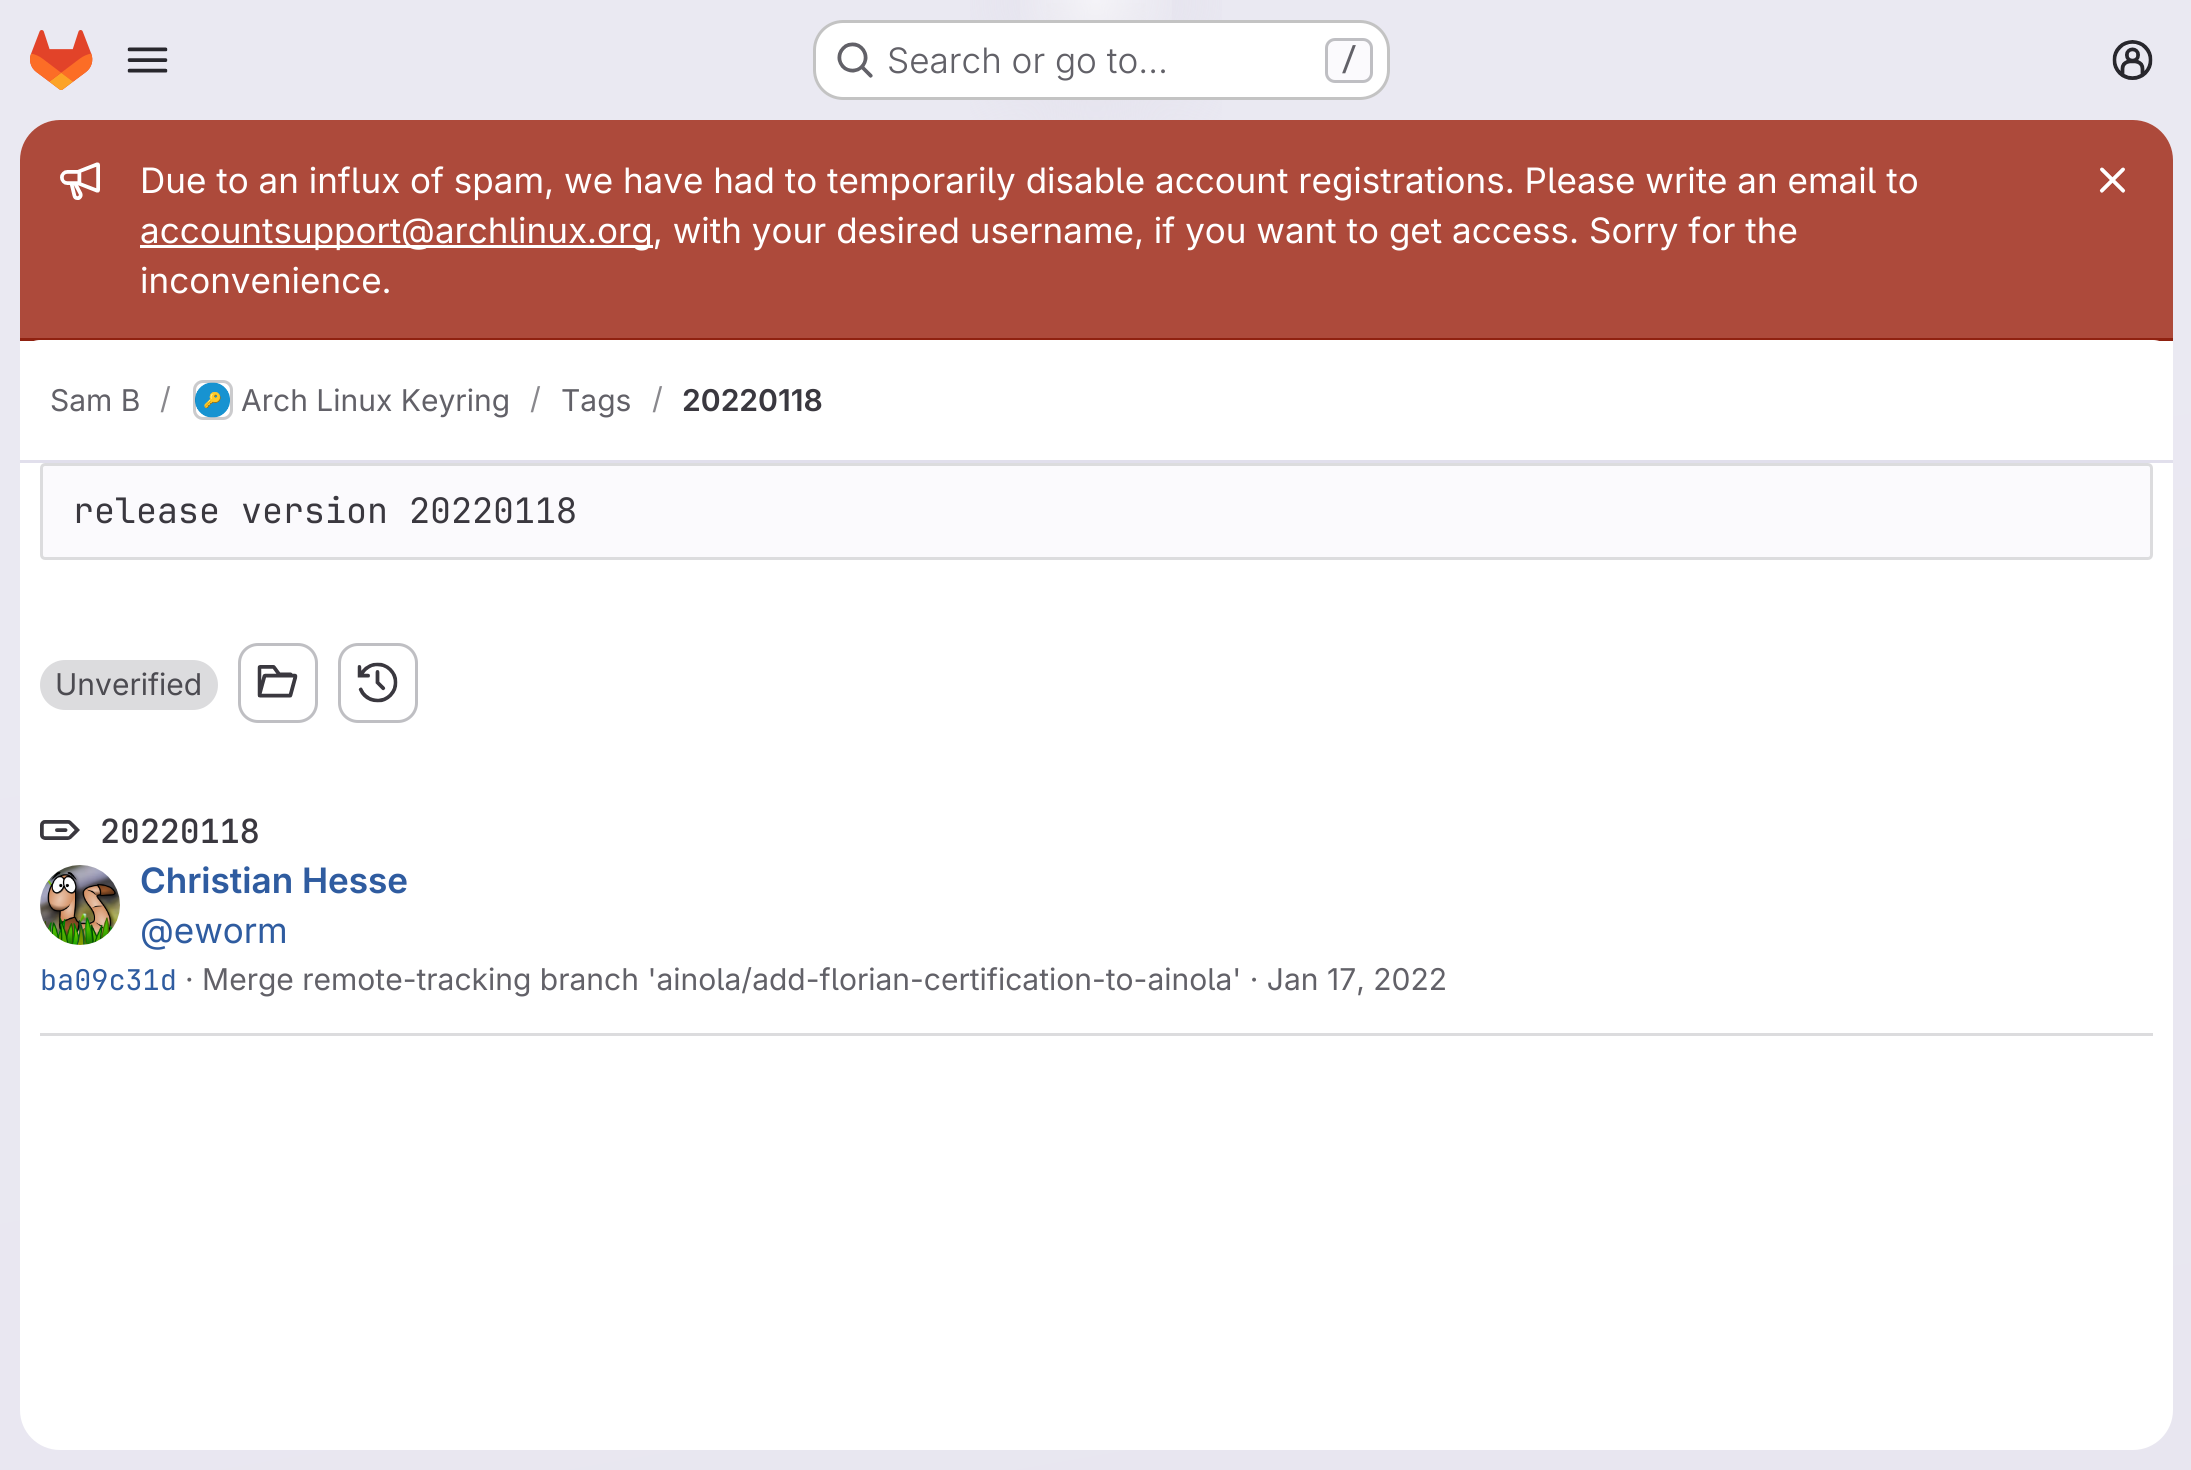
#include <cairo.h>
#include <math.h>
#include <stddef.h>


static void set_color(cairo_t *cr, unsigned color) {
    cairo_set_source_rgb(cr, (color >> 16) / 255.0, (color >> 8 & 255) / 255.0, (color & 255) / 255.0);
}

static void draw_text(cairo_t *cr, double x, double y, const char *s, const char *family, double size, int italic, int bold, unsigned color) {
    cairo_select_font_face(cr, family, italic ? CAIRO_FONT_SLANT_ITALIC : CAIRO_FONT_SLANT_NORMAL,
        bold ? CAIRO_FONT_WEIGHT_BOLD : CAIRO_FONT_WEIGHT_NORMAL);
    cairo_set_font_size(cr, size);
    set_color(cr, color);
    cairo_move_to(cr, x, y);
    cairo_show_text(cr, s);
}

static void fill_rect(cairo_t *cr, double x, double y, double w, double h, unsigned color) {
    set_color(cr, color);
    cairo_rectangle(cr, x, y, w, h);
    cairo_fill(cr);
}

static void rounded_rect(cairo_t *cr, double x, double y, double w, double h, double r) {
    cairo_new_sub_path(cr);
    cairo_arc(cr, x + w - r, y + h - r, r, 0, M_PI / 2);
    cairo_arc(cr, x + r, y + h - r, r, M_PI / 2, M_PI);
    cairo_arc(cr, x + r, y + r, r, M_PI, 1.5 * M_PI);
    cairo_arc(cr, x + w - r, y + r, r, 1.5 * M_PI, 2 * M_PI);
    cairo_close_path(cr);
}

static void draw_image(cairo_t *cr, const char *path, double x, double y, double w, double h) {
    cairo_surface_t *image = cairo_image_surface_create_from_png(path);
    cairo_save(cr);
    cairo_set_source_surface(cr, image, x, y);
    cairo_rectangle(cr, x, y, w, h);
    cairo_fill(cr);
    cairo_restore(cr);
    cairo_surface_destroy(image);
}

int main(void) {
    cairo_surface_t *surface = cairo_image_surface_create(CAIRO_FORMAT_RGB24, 2191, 1470);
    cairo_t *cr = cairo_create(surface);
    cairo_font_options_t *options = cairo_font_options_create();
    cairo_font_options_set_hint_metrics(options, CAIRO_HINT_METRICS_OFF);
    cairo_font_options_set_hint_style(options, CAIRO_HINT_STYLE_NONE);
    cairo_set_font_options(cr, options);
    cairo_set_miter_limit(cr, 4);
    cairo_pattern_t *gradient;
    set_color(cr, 0xFFFFFF);
    cairo_paint(cr);
    gradient = cairo_pattern_create_linear(1255, 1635, 938, -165);
    cairo_pattern_add_color_stop_rgba(gradient, 0, 0.91, 0.902, 0.941, 1);
    cairo_pattern_add_color_stop_rgba(gradient, 0.7, 0.918, 0.914, 0.949, 1);
    cairo_set_source(cr, gradient);
    cairo_pattern_destroy(gradient);
    cairo_rectangle(cr, 0, 0, 2191, 1470);
    cairo_fill(cr);
    gradient = cairo_pattern_create_radial(0, 0, 0, 0, 0, 1);
    cairo_pattern_set_matrix(gradient, &(cairo_matrix_t){1.0 / 1096, 0, 0, 1.0 / 1470, -1.0 * 1096 / 1096, -1.0 * 0 / 1470});
    cairo_pattern_add_color_stop_rgba(gradient, 0, 0.894, 0.886, 0.929, 1);
    cairo_pattern_add_color_stop_rgba(gradient, 0.16, 0.894, 0.886, 0.929, 0);
    cairo_set_source(cr, gradient);
    cairo_pattern_destroy(gradient);
    cairo_rectangle(cr, 970, 0, 252, 120);
    cairo_fill(cr);
    gradient = cairo_pattern_create_radial(0, 0, 0, 0, 0, 1);
    cairo_pattern_set_matrix(gradient, &(cairo_matrix_t){1.0 / 1096, 0, 0, 1.0 / 1470, -1.0 * 1096 / 1096, -1.0 * 0 / 1470});
    cairo_pattern_add_color_stop_rgba(gradient, 0, 0.894, 0.886, 0.925, 1);
    cairo_pattern_add_color_stop_rgba(gradient, 0.11, 0.894, 0.886, 0.925, 0);
    cairo_set_source(cr, gradient);
    cairo_pattern_destroy(gradient);
    cairo_rectangle(cr, 1046, 3, 100, 59);
    cairo_fill(cr);
    gradient = cairo_pattern_create_radial(1096, 0, 0, 1096, 0, 1834);
    cairo_pattern_add_color_stop_rgba(gradient, 0, 1, 1, 1, 0.6);
    cairo_pattern_add_color_stop_rgba(gradient, 0.05, 1, 1, 1, 0);
    cairo_set_source(cr, gradient);
    cairo_pattern_destroy(gradient);
    cairo_rectangle(cr, 1020, 0, 152, 20);
    cairo_fill(cr);
    draw_image(cr, "assets/img1.png", 30, 30, 63, 60);
    draw_image(cr, "assets/img2.png", 127, 47, 41, 26);
    set_color(cr, 0xFFFFFF);
    rounded_rect(cr, 813, 20, 577, 80, 30);
    cairo_fill(cr);
    rounded_rect(cr, 814.5, 21.5, 574, 77, 28.5);
    cairo_set_source_rgba(cr, 0.02, 0.02, 0.024, 0.24);
    cairo_set_line_width(cr, 3);
    cairo_stroke(cr);
    draw_image(cr, "assets/img3.png", 837, 42, 36, 36);
    draw_text(cr, 887, 73, "Search or go to…", "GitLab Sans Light", 35, 0, 0, 0x626168);
    set_color(cr, 0xFBFAFD);
    rounded_rect(cr, 1326.5, 39.5, 45, 42, 8.5);
    cairo_fill_preserve(cr);
    set_color(cr, 0xBFBFC3);
    cairo_stroke(cr);
    draw_text(cr, 1340, 70, "/", "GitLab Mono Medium", 30, 0, 0, 0x626168);
    draw_image(cr, "assets/img4.png", 2112, 40, 41, 40);
    set_color(cr, 0xFFFFFF);
    rounded_rect(cr, 20, 120, 2153, 1330, 40);
    cairo_fill(cr);
    set_color(cr, 0xAD4A3B);
    cairo_new_path(cr);
    cairo_move_to(cr, 60, 120);
    cairo_line_to(cr, 2133, 120);
    cairo_curve_to(cr, 2155, 120, 2173, 138, 2173, 160);
    cairo_line_to(cr, 2173, 340);
    cairo_line_to(cr, 20, 340);
    cairo_line_to(cr, 20, 160);
    cairo_curve_to(cr, 20, 138, 38, 120, 60, 120);
    cairo_close_path(cr);
    cairo_fill(cr);
    fill_rect(cr, 20, 338, 2153, 3, 0x8F2110);
    draw_image(cr, "assets/img5.png", 60, 162, 40, 38);
    draw_text(cr, 140, 193, "Due to an influx of spam, we have had to temporarily disable account registrations. Please write an email to", "GitLab Sans", 35, 0, 0, 0xFFFFFF);
    fill_rect(cr, 140, 245, 513, 3, 0xFFFFFF);
    draw_text(cr, 140, 243, "accountsupport@archlinux.org, with your desired username, if you want to get access. Sorry for the", "GitLab Sans", 35, 0, 0, 0xFFFFFF);
    draw_text(cr, 140, 293, "inconvenience.", "GitLab Sans", 35, 0, 0, 0xFFFFFF);
    draw_image(cr, "assets/img6.png", 2099, 167, 27, 26);
    cairo_new_path(cr);
    cairo_move_to(cr, 40, 340);
    cairo_line_to(cr, 2153, 340);
    cairo_curve_to(cr, 2164, 340, 2173, 349, 2173, 360);
    cairo_line_to(cr, 2173, 463);
    cairo_line_to(cr, 20, 463);
    cairo_line_to(cr, 20, 360);
    cairo_curve_to(cr, 20, 349, 29, 340, 40, 340);
    cairo_close_path(cr);
    cairo_fill(cr);
    fill_rect(cr, 20, 460, 2153, 3, 0xE1DFEC);
    draw_text(cr, 50, 411, "Sam B", "GitLab Sans", 30, 0, 0, 0x626168);
    draw_text(cr, 160, 409, "/", "GitLab Sans", 30, 0, 0, 0x89888D);
    rounded_rect(cr, 194.5, 381.5, 37, 37, 8.5);
    set_color(cr, 0xDCDCDE);
    cairo_stroke(cr);
    draw_image(cr, "assets/img7.png", 195, 382, 35, 36);
    rounded_rect(cr, 194.5, 381.5, 37, 37, 8.5);
    cairo_set_source_rgba(cr, 0.02, 0.02, 0.024, 0.08);
    cairo_stroke(cr);
    draw_text(cr, 241, 411, "Arch Linux Keyring", "GitLab Sans", 30, 0, 0, 0x626168);
    draw_text(cr, 530, 409, "/", "GitLab Sans", 30, 0, 0, 0x89888D);
    draw_text(cr, 561, 411, "Tags", "GitLab Sans", 30, 0, 0, 0x626168);
    draw_text(cr, 652, 409, "/", "GitLab Sans", 30, 0, 0, 0x89888D);
    draw_text(cr, 682, 411, "20220118", "GitLab Sans SemiBold", 30, 0, 0, 0x3A383F);
    fill_rect(cr, 40, 1033, 2113, 3, 0xDCDCDE);
    set_color(cr, 0xFBFAFD);
    rounded_rect(cr, 41.5, 464.5, 2110, 94, 3.5);
    cairo_fill_preserve(cr);
    set_color(cr, 0xDCDCDE);
    cairo_stroke(cr);
    draw_text(cr, 73, 523, "release version 20220118", "GitLab Mono", 35, 0, 0, 0x3A383F);
    set_color(cr, 0xDCDCDE);
    rounded_rect(cr, 40, 660, 178, 50, 25);
    cairo_fill(cr);
    draw_text(cr, 55, 695, "Unverified", "GitLab Sans", 30, 0, 0, 0x4C4B51);
    rounded_rect(cr, 239.5, 644.5, 77, 77, 18.5);
    set_color(cr, 0xBFBFC3);
    cairo_stroke(cr);
    draw_image(cr, "assets/img8.png", 257, 665, 41, 33);
    rounded_rect(cr, 339.5, 644.5, 77, 77, 18.5);
    cairo_stroke(cr);
    draw_image(cr, "assets/img9.png", 357, 662, 41, 41);
    draw_image(cr, "assets/img10.png", 40, 820, 40, 20);
    draw_text(cr, 100, 843, "20220118", "GitLab Mono SemiBold", 33.25, 0, 0, 0x3A383F);
    cairo_new_path(cr);
    cairo_arc(cr, 80, 905, 38.5, 0, 2 * M_PI);
    set_color(cr, 0xE7E7E9);
    cairo_stroke(cr);
    draw_image(cr, "assets/img11.png", 40, 865, 80, 80);
    draw_text(cr, 140, 893, "Christian Hesse", "GitLab Sans SemiBold", 35, 0, 0, 0x2F5CA0);
    draw_text(cr, 140, 943, "@eworm", "GitLab Sans", 35, 0, 0, 0x2F5CA0);
    draw_text(cr, 40, 990, "ba09c31d", "GitLab Mono", 28.5, 0, 0, 0x2F5CA0);
    draw_text(cr, 185, 990, "· Merge remote-tracking branch 'ainola/add-florian-certification-to-ainola' · Jan 17, 2022", "GitLab Sans", 30, 0, 0, 0x626168);
    cairo_surface_write_to_png(surface, "output.png");
    cairo_font_options_destroy(options);
    cairo_destroy(cr);
    cairo_surface_destroy(surface);
    return 0;
}
